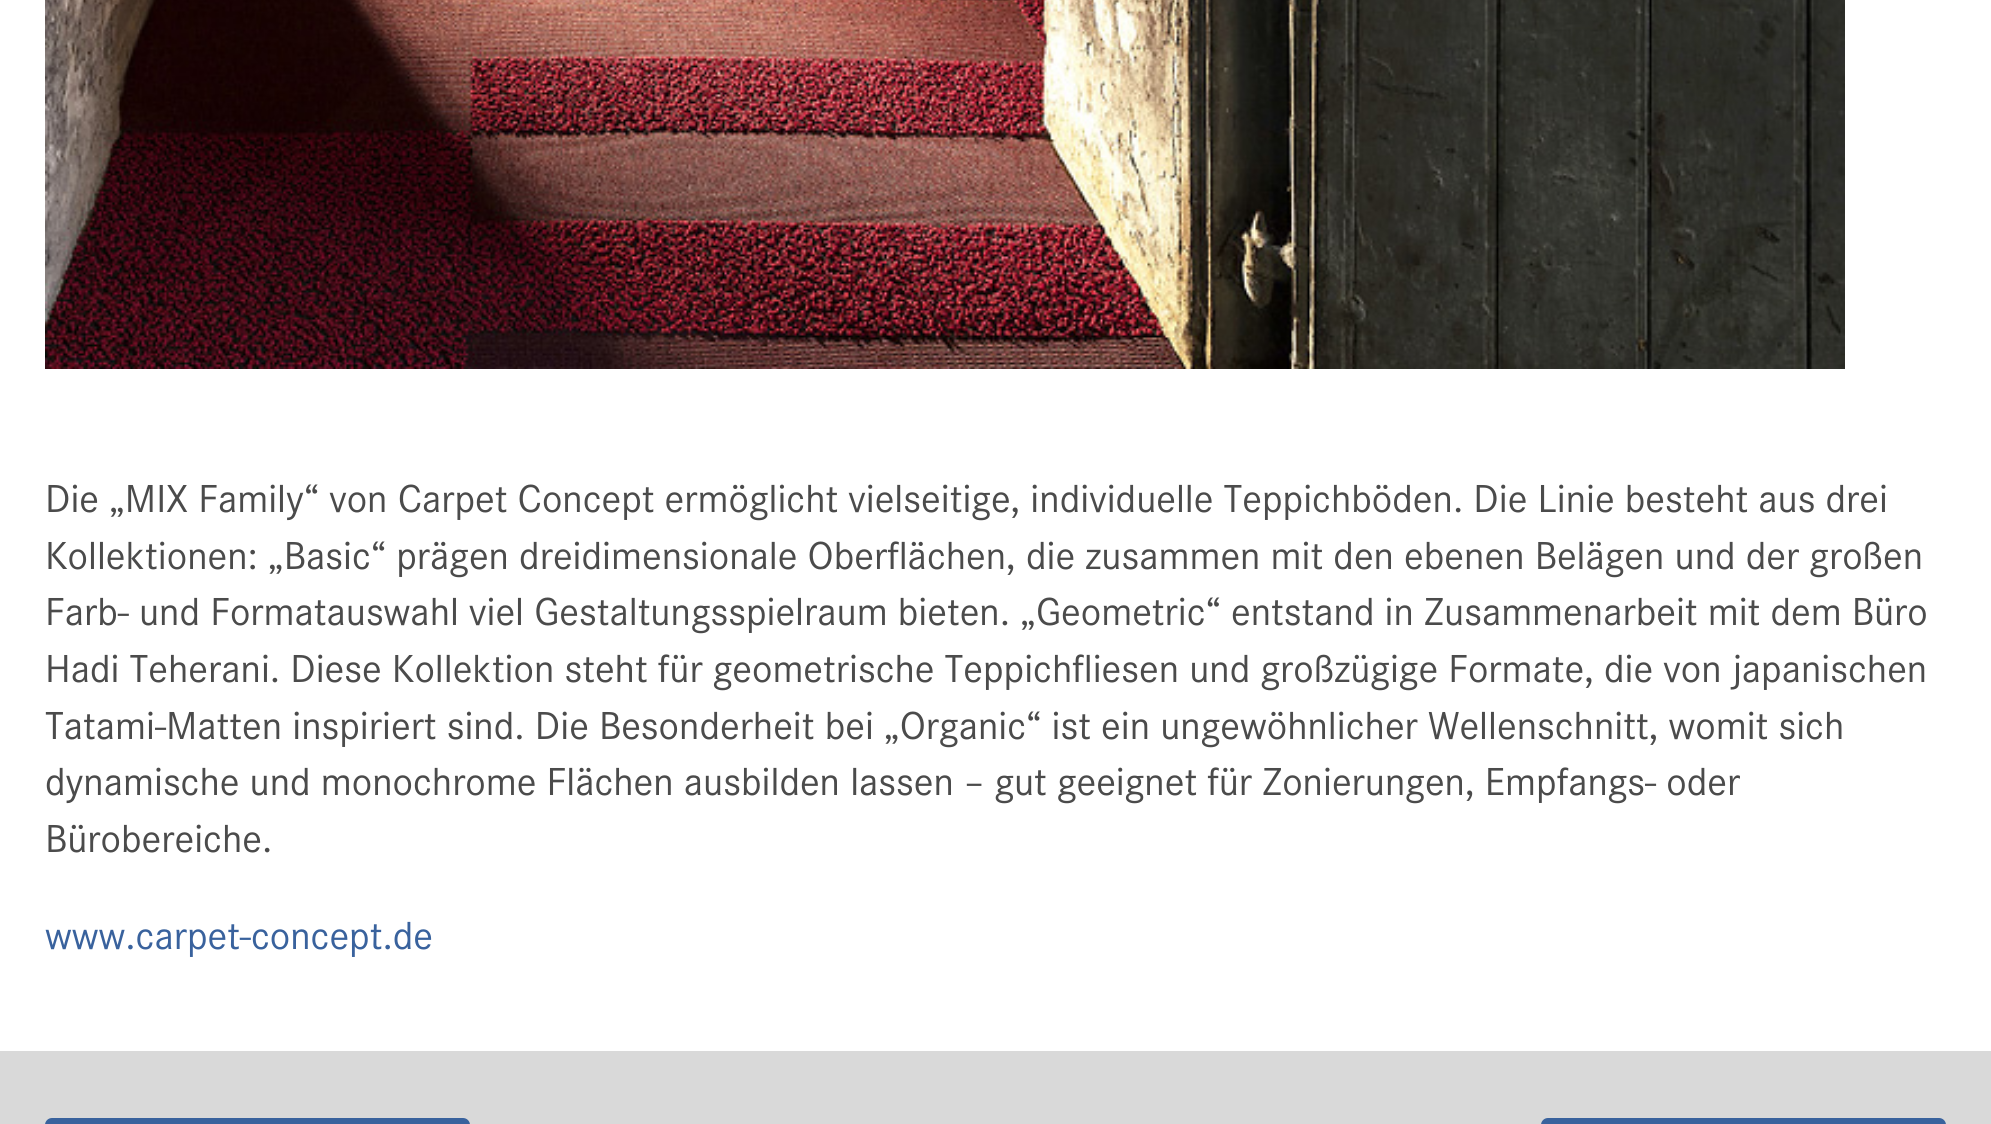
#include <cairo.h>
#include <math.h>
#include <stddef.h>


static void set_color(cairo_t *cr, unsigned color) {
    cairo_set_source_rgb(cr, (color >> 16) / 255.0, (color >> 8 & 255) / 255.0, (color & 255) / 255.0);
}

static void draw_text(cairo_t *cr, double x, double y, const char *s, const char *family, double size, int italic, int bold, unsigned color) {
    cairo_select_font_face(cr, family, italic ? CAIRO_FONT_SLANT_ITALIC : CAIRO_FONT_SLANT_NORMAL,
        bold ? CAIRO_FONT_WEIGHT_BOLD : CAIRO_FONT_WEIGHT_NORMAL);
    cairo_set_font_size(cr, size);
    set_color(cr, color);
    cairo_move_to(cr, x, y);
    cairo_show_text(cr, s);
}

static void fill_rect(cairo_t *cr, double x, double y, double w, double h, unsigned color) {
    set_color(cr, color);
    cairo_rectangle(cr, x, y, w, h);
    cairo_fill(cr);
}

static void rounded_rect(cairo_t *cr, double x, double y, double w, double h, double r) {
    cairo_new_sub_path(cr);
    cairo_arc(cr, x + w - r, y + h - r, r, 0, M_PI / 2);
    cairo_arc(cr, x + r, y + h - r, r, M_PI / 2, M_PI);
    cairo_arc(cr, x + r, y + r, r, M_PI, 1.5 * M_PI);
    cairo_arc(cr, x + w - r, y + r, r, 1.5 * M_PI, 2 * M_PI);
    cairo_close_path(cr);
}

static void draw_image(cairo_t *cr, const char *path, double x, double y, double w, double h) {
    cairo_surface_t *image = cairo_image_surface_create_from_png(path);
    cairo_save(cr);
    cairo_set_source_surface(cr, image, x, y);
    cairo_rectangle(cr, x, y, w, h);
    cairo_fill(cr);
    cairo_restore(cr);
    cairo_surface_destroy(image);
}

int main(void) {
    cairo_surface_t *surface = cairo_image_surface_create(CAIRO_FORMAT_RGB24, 1991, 1124);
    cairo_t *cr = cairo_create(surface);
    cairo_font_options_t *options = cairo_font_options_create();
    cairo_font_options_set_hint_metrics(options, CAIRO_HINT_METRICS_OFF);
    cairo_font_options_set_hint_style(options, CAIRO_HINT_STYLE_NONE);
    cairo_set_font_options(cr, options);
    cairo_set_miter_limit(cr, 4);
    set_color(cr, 0xFFFFFF);
    cairo_paint(cr);
    draw_image(cr, "assets/img1.png", 45, 0, 1800, 369);
    draw_text(cr, 45, 512, "Die „MIX Family“ von Carpet Concept ermöglicht vielseitige, individuelle Teppichböden. Die Linie besteht aus drei", "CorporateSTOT", 40.5, 0, 0, 0x4B4B4B);
    draw_text(cr, 45, 569, "Kollektionen: „Basic“ prägen dreidimensionale Oberflächen, die zusammen mit den ebenen Belägen und der großen", "CorporateSTOT", 40.5, 0, 0, 0x4B4B4B);
    draw_text(cr, 45, 625, "Farb- und Formatauswahl viel Gestaltungsspielraum bieten. „Geometric“ entstand in Zusammenarbeit mit dem Büro", "CorporateSTOT", 40.5, 0, 0, 0x4B4B4B);
    draw_text(cr, 45, 682, "Hadi Teherani. Diese Kollektion steht für geometrische Teppichfliesen und großzügige Formate, die von japanischen", "CorporateSTOT", 40.5, 0, 0, 0x4B4B4B);
    draw_text(cr, 45, 739, "Tatami-Matten inspiriert sind. Die Besonderheit bei „Organic“ ist ein ungewöhnlicher Wellenschnitt, womit sich", "CorporateSTOT", 40.5, 0, 0, 0x4B4B4B);
    draw_text(cr, 45, 795, "dynamische und monochrome Flächen ausbilden lassen – gut geeignet für Zonierungen, Empfangs- oder", "CorporateSTOT", 40.5, 0, 0, 0x4B4B4B);
    draw_text(cr, 45, 852, "Bürobereiche.", "CorporateSTOT", 40.5, 0, 0, 0x4B4B4B);
    draw_text(cr, 45, 949, "www.carpet-concept.de", "CorporateSTOT", 40.5, 0, 0, 0x39629D);
    fill_rect(cr, 0, 1051, 1991, 73, 0xD9D9D9);
    set_color(cr, 0x39629D);
    rounded_rect(cr, 45, 1118, 425, 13, 7);
    cairo_fill(cr);
    rounded_rect(cr, 1541, 1118, 405, 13, 7);
    cairo_fill(cr);
    cairo_surface_write_to_png(surface, "output.png");
    cairo_font_options_destroy(options);
    cairo_destroy(cr);
    cairo_surface_destroy(surface);
    return 0;
}
